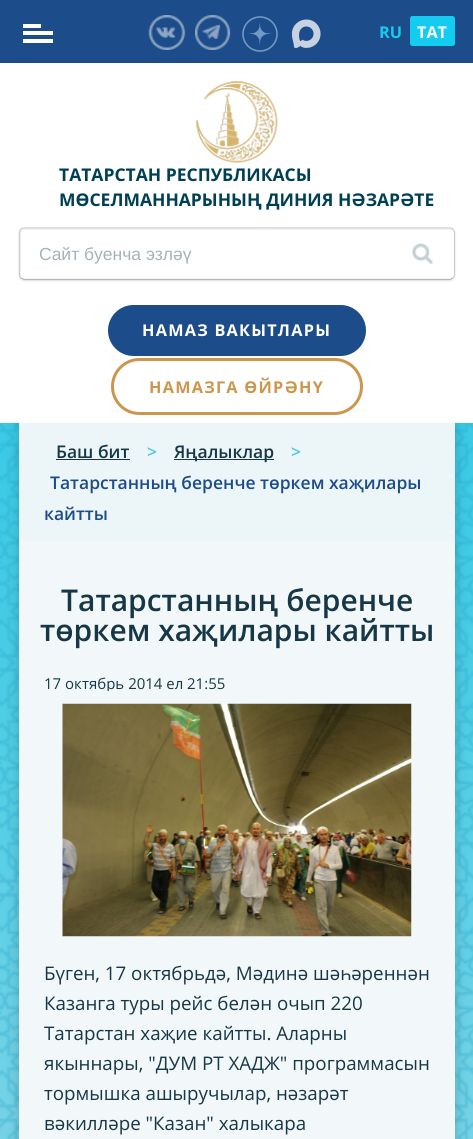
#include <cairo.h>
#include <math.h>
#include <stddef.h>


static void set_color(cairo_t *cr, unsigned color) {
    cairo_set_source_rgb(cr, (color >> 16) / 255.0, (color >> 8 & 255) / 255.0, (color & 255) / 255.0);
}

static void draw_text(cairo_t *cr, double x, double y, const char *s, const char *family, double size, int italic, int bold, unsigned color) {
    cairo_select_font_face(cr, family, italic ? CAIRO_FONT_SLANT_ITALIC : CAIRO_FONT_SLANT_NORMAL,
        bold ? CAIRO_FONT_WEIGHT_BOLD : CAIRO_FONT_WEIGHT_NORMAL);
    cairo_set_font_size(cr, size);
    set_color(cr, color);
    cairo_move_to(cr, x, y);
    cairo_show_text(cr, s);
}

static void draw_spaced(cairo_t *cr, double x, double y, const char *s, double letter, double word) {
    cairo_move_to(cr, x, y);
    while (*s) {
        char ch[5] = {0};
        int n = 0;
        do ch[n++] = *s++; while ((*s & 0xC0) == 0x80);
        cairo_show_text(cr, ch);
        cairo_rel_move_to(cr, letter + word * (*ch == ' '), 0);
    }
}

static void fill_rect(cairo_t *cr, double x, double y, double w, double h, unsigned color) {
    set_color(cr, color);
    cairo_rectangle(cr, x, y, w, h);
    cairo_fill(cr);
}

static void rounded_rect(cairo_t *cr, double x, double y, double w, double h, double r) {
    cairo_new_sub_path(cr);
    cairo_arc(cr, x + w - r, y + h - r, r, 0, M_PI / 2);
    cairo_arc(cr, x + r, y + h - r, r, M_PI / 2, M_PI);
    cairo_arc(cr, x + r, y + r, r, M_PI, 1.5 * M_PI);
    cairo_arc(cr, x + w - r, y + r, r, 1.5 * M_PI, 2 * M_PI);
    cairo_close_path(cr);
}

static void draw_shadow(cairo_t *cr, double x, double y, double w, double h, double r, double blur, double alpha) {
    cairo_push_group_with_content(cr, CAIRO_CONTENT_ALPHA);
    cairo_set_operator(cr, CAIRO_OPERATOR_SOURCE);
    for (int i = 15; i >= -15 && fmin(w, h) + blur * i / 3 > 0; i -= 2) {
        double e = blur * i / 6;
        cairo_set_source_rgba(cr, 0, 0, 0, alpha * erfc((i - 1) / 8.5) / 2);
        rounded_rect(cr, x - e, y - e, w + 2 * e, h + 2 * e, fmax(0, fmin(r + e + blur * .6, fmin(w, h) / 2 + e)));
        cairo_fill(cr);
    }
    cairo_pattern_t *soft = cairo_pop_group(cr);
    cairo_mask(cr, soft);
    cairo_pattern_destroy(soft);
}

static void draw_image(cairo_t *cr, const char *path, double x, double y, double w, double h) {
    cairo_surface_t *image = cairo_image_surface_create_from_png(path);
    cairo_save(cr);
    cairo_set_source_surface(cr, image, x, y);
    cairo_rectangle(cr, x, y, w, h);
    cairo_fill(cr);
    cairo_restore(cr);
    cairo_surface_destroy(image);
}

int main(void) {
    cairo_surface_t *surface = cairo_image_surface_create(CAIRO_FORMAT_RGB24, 473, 1139);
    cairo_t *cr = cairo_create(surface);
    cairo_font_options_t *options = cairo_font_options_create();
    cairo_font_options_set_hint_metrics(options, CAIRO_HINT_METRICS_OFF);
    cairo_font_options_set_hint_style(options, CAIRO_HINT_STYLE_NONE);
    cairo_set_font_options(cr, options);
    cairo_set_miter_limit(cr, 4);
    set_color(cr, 0xFFFFFF);
    cairo_paint(cr);
    draw_image(cr, "assets/img1.png", 0, 423, 473, 716);
    fill_rect(cr, 0, 0, 473, 63, 0x1C4C89);
    fill_rect(cr, 23, 31, 30, 4, 0xFFFFFF);
    fill_rect(cr, 23, 24, 18, 4, 0xFFFFFF);
    fill_rect(cr, 23, 39, 30, 4, 0xFFFFFF);
    draw_image(cr, "assets/img2.png", 148, 15, 38, 35);
    draw_image(cr, "assets/img3.png", 195, 15, 36, 35);
    draw_image(cr, "assets/img4.png", 242, 16, 36, 36);
    draw_image(cr, "assets/img5.png", 291, 19, 30, 29);
    draw_text(cr, 379, 38, "RU", "Open Sans", 16.25, 0, 1, 0x13CCEF);
    rounded_rect(cr, 410, 16, 45, 30, 2.5);
    cairo_fill(cr);
    draw_text(cr, 417, 38, "TAT", "Open Sans", 16.25, 0, 1, 0xFFFFFF);
    draw_image(cr, "assets/img6.png", 196, 81, 82, 82);
    draw_text(cr, 59, 181, "ТАТАРСТАН РЕСПУБЛИКАСЫ", "Open Sans", 17.5, 0, 1, 0x004055);
    draw_text(cr, 59, 206, "МӨСЕЛМАННАРЫНЫҢ ДИНИЯ НӘЗАРӘТЕ", "Open Sans", 17.5, 0, 1, 0x004055);
    cairo_save(cr);
    cairo_set_fill_rule(cr, CAIRO_FILL_RULE_EVEN_ODD);
    cairo_new_path(cr);
    cairo_move_to(cr, 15, 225);
    cairo_line_to(cr, 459, 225);
    cairo_line_to(cr, 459, 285);
    cairo_line_to(cr, 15, 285);
    cairo_close_path(cr);
    cairo_move_to(cr, 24, 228);
    cairo_line_to(cr, 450, 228);
    cairo_curve_to(cr, 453, 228, 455, 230, 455, 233);
    cairo_line_to(cr, 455, 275);
    cairo_curve_to(cr, 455, 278, 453, 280, 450, 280);
    cairo_line_to(cr, 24, 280);
    cairo_curve_to(cr, 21, 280, 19, 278, 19, 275);
    cairo_line_to(cr, 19, 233);
    cairo_curve_to(cr, 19, 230, 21, 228, 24, 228);
    cairo_close_path(cr);
    cairo_clip(cr);
    set_color(cr, 0x000000);
    draw_shadow(cr, 19, 229, 436, 52, 5, 1, 0.1);
    cairo_restore(cr);
    draw_image(cr, "assets/img7.png", 412, 243, 21, 21);
    set_color(cr, 0xF1F1F1);
    cairo_new_path(cr);
    cairo_move_to(cr, 25, 230);
    cairo_line_to(cr, 451, 230);
    cairo_line_to(cr, 453, 231);
    cairo_curve_to(cr, 453, 230, 451, 229, 450, 229);
    cairo_line_to(cr, 24, 229);
    cairo_curve_to(cr, 22, 229, 20, 231, 20, 233);
    cairo_line_to(cr, 20, 275);
    cairo_curve_to(cr, 20, 276, 21, 278, 22, 278);
    cairo_line_to(cr, 21, 276);
    cairo_line_to(cr, 21, 234);
    cairo_curve_to(cr, 21, 232, 23, 230, 25, 230);
    cairo_close_path(cr);
    cairo_fill(cr);
    cairo_new_path(cr);
    cairo_move_to(cr, 453, 278);
    cairo_line_to(cr, 450, 279.5);
    cairo_line_to(cr, 24, 279.5);
    cairo_line_to(cr, 20.5, 278);
    set_color(cr, 0xB3B3B3);
    cairo_set_line_width(cr, 1.2);
    cairo_stroke(cr);
    cairo_new_path(cr);
    cairo_move_to(cr, 20.5, 278);
    cairo_curve_to(cr, 20, 277.5, 19.5, 276, 19.5, 275);
    cairo_line_to(cr, 19.5, 232.5);
    cairo_curve_to(cr, 19.5, 231.5, 20, 230, 20.5, 229.5);
    cairo_curve_to(cr, 21.5, 228.5, 22.5, 228, 24, 228);
    cairo_line_to(cr, 450, 228);
    cairo_curve_to(cr, 451, 228, 452.5, 228.5, 453, 229.5);
    cairo_curve_to(cr, 454, 230, 454.5, 231.5, 454.5, 232.5);
    cairo_line_to(cr, 454.5, 275);
    cairo_curve_to(cr, 454.5, 276, 454, 277.5, 453, 278);
    set_color(cr, 0xCCCCCC);
    cairo_stroke(cr);
    draw_text(cr, 39, 260, "Сайт буенча эзләү", "Liberation Sans", 17.5, 0, 0, 0xA4B3B9);
    set_color(cr, 0x1C4C89);
    rounded_rect(cr, 108, 305, 258, 51, 25.5);
    cairo_fill(cr);
    cairo_select_font_face(cr, "Open Sans", CAIRO_FONT_SLANT_NORMAL, CAIRO_FONT_WEIGHT_BOLD);
    cairo_set_font_size(cr, 16.25);
    set_color(cr, 0xFFFFFF);
    draw_spaced(cr, 142, 336, "НАМАЗ ВАКЫТЛАРЫ", 1.25, 0);
    rounded_rect(cr, 112.5, 359.5, 249, 54, 27);
    set_color(cr, 0xCC974D);
    cairo_set_line_width(cr, 3);
    cairo_stroke(cr);
    draw_spaced(cr, 149, 393, "НАМАЗГА ӨЙРӘНҮ", 1.25, 0);
    cairo_save(cr);
    cairo_rectangle(cr, 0, 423, 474, 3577);
    cairo_clip(cr);
    set_color(cr, 0x000000);
    draw_shadow(cr, 19, 423, 436, 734, 0, 6, 0.2);
    cairo_restore(cr);
    fill_rect(cr, 19, 541, 436, 598, 0xF2F8FA);
    fill_rect(cr, 19, 423, 436, 118, 0xECF5F8);
    draw_text(cr, 56, 458, "Баш бит", "Open Sans SemiBold", 17.5, 0, 0, 0x183746);
    fill_rect(cr, 56, 459, 74, 1, 0x183746);
    draw_text(cr, 147, 458, ">", "Open Sans SemiBold", 17.5, 0, 0, 0x48CAE5);
    fill_rect(cr, 174, 459, 100, 1, 0x183746);
    draw_text(cr, 174, 458, "Яңалыклар", "Open Sans SemiBold", 17.5, 0, 0, 0x183746);
    draw_text(cr, 291, 458, ">", "Open Sans SemiBold", 17.5, 0, 0, 0x48CAE5);
    draw_text(cr, 50, 489, "Татарстанның беренче төркем хаҗилары", "Open Sans SemiBold", 17.5, 0, 0, 0x1C4C89);
    draw_text(cr, 44, 520, "кайтты", "Open Sans SemiBold", 17.5, 0, 0, 0x1C4C89);
    draw_text(cr, 61, 611, "Татарстанның беренче", "Open Sans SemiBold", 30, 0, 0, 0x183746);
    draw_text(cr, 40, 641, "төркем хаҗилары кайтты", "Open Sans SemiBold", 30, 0, 0, 0x183746);
    cairo_save(cr);
    cairo_rectangle(cr, 44, 676, 386, 15);
    cairo_clip(cr);
    draw_text(cr, 44, 689, "17 октябрь 2014 ел", "Open Sans", 15, 0, 0, 0x183746);
    cairo_restore(cr);
    draw_text(cr, 187, 689, "21:55", "Open Sans", 15, 0, 0, 0x183746);
    draw_image(cr, "assets/img8.png", 62, 703, 350, 234);
    draw_text(cr, 44, 980, "Бүген, 17 октябрьдә, Мәдинә шәһәреннән", "Open Sans", 18.75, 0, 0, 0x183746);
    draw_text(cr, 44, 1010, "Казанга туры рейс белән очып 220", "Open Sans", 18.75, 0, 0, 0x183746);
    draw_text(cr, 44, 1040, "Татарстан хаҗие кайтты. Аларны", "Open Sans", 18.75, 0, 0, 0x183746);
    draw_text(cr, 44, 1070, "якыннары, \"ДУМ РТ ХАДЖ\" программасын", "Open Sans", 18.75, 0, 0, 0x183746);
    draw_text(cr, 44, 1100, "тормышка ашыручылар, нәзарәт", "Open Sans", 18.75, 0, 0, 0x183746);
    draw_text(cr, 44, 1130, "вәкилләре \"Казан\" халыкара", "Open Sans", 18.75, 0, 0, 0x183746);
    cairo_surface_write_to_png(surface, "output.png");
    cairo_font_options_destroy(options);
    cairo_destroy(cr);
    cairo_surface_destroy(surface);
    return 0;
}
